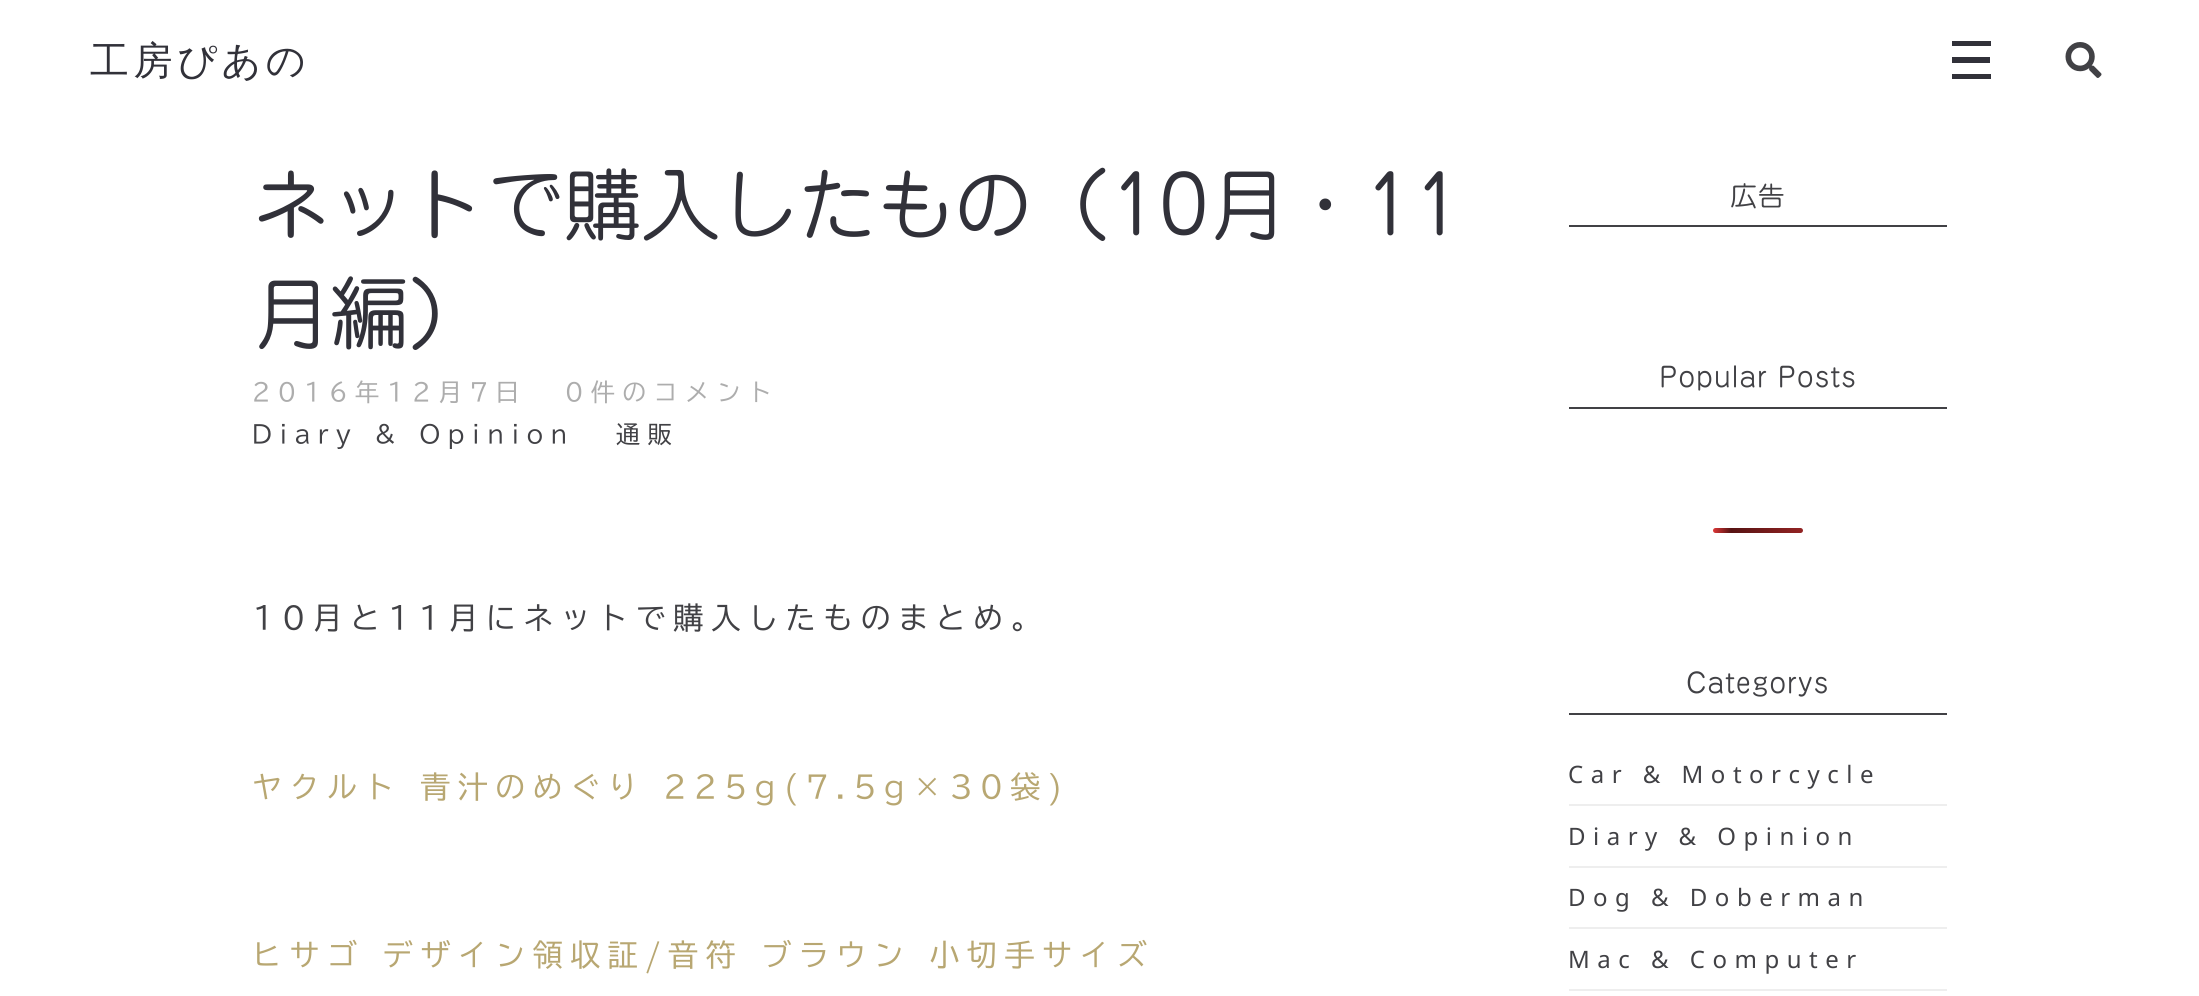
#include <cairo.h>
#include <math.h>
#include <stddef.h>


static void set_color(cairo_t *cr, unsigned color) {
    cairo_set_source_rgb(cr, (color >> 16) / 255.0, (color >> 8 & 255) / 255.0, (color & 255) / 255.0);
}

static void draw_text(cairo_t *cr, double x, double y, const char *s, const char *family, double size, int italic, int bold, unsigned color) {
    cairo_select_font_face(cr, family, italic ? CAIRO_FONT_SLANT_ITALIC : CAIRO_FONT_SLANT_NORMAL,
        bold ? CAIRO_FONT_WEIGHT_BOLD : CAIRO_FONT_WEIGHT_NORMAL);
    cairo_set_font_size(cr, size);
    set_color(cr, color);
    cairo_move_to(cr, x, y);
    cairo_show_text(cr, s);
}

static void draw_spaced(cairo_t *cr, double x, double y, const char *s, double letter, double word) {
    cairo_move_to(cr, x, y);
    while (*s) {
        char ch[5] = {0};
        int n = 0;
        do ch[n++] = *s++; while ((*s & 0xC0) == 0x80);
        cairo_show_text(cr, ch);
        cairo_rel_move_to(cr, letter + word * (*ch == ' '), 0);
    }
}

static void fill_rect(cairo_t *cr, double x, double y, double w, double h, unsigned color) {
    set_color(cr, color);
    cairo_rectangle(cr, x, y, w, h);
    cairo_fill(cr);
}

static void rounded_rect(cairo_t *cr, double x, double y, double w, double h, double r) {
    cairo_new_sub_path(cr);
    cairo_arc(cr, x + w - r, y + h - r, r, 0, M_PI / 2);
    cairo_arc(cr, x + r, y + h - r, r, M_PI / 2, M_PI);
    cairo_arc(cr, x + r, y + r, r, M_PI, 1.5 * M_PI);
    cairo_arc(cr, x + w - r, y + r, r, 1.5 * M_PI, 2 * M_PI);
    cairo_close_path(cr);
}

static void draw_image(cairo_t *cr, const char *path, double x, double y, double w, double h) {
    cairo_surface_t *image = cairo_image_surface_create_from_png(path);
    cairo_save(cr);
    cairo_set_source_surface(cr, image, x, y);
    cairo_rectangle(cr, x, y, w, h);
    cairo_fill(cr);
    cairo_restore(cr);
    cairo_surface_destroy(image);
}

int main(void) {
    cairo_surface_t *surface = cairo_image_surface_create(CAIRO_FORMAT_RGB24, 2199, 996);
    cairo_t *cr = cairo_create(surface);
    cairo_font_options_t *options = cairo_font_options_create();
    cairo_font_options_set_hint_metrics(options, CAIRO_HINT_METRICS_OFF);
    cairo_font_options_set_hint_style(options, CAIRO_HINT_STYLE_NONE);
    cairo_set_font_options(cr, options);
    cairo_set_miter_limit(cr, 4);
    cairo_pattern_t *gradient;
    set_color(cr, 0xFFFFFF);
    cairo_paint(cr);
    cairo_select_font_face(cr, "WenQuanYi Zen Hei Medium", CAIRO_FONT_SLANT_NORMAL, CAIRO_FONT_WEIGHT_NORMAL);
    cairo_set_font_size(cr, 39);
    set_color(cr, 0x313139);
    draw_spaced(cr, 90, 74, "工房ぴあの", 4.5, 0);
    fill_rect(cr, 1952, 41, 39, 5, 0x313139);
    fill_rect(cr, 1952, 57, 38, 6, 0x313139);
    fill_rect(cr, 1952, 74, 39, 5, 0x313139);
    draw_image(cr, "assets/img1.png", 2065, 42, 37, 36);
    draw_text(cr, 252, 234, "ネットで購入したもの（10月・11", "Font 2", 78, 0, 0, 0x313139);
    draw_text(cr, 252, 343, "月編）", "Font 2", 78, 0, 0, 0x313139);
    cairo_select_font_face(cr, "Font", CAIRO_FONT_SLANT_NORMAL, CAIRO_FONT_WEIGHT_NORMAL);
    cairo_set_font_size(cr, 24);
    set_color(cr, 0xADADAD);
    draw_spaced(cr, 252, 401, "2016年12月7日", 7.5, 0);
    draw_spaced(cr, 565, 401, "0件のコメント", 7.5, 0);
    set_color(cr, 0x414145);
    draw_spaced(cr, 252, 443, "Diary & Opinion", 7.5, 0);
    draw_spaced(cr, 616, 443, "通販", 7.5, 0);
    cairo_set_font_size(cr, 30);
    draw_spaced(cr, 252, 629, "10月と11月にネットで購入したものまとめ。", 7.5, 0);
    set_color(cr, 0xB8A772);
    draw_spaced(cr, 252, 798, "ヤクルト 青汁のめぐり 225g(7.5g×30袋)", 7.5, 0);
    draw_spaced(cr, 252, 966, "ヒサゴ デザイン領収証/音符 ブラウン 小切手サイズ", 7.5, 0);
    fill_rect(cr, 1569, 225, 378, 2, 0x414145);
    cairo_select_font_face(cr, "Font 2", CAIRO_FONT_SLANT_NORMAL, CAIRO_FONT_WEIGHT_NORMAL);
    cairo_set_font_size(cr, 27);
    draw_spaced(cr, 1730, 206, "広告", 0.75, 0);
    fill_rect(cr, 1569, 407, 378, 2, 0x414145);
    draw_spaced(cr, 1659, 387, "Popular Posts", 0.75, 0);
    gradient = cairo_pattern_create_linear(1713, 530, 1893, 530);
    cairo_pattern_add_color_stop_rgba(gradient, 0, 0.867, 0.216, 0.216, 1);
    cairo_pattern_add_color_stop_rgba(gradient, 0.1, 0.341, 0.075, 0.075, 1);
    cairo_pattern_add_color_stop_rgba(gradient, 1, 0.867, 0.216, 0.216, 1);
    cairo_set_source(cr, gradient);
    cairo_pattern_destroy(gradient);
    rounded_rect(cr, 1713, 528, 90, 5, 2.5);
    cairo_fill(cr);
    fill_rect(cr, 1569, 713, 378, 2, 0x414145);
    draw_spaced(cr, 1686, 693, "Categorys", 0.75, 0);
    fill_rect(cr, 1569, 804, 378, 2, 0xEEEEEE);
    cairo_select_font_face(cr, "Noto Sans", CAIRO_FONT_SLANT_NORMAL, CAIRO_FONT_WEIGHT_NORMAL);
    cairo_set_font_size(cr, 24);
    set_color(cr, 0x414145);
    draw_spaced(cr, 1568, 783, "Car & Motorcycle", 7.5, 0);
    fill_rect(cr, 1569, 866, 378, 2, 0xEEEEEE);
    set_color(cr, 0x414145);
    draw_spaced(cr, 1568, 845, "Diary & Opinion", 7.5, 0);
    fill_rect(cr, 1569, 927, 378, 2, 0xEEEEEE);
    set_color(cr, 0x414145);
    draw_spaced(cr, 1568, 906, "Dog & Doberman", 7.5, 0);
    fill_rect(cr, 1569, 989, 378, 2, 0xEEEEEE);
    set_color(cr, 0x414145);
    draw_spaced(cr, 1568, 968, "Mac & Computer", 7.5, 0);
    cairo_surface_write_to_png(surface, "output.png");
    cairo_font_options_destroy(options);
    cairo_destroy(cr);
    cairo_surface_destroy(surface);
    return 0;
}
